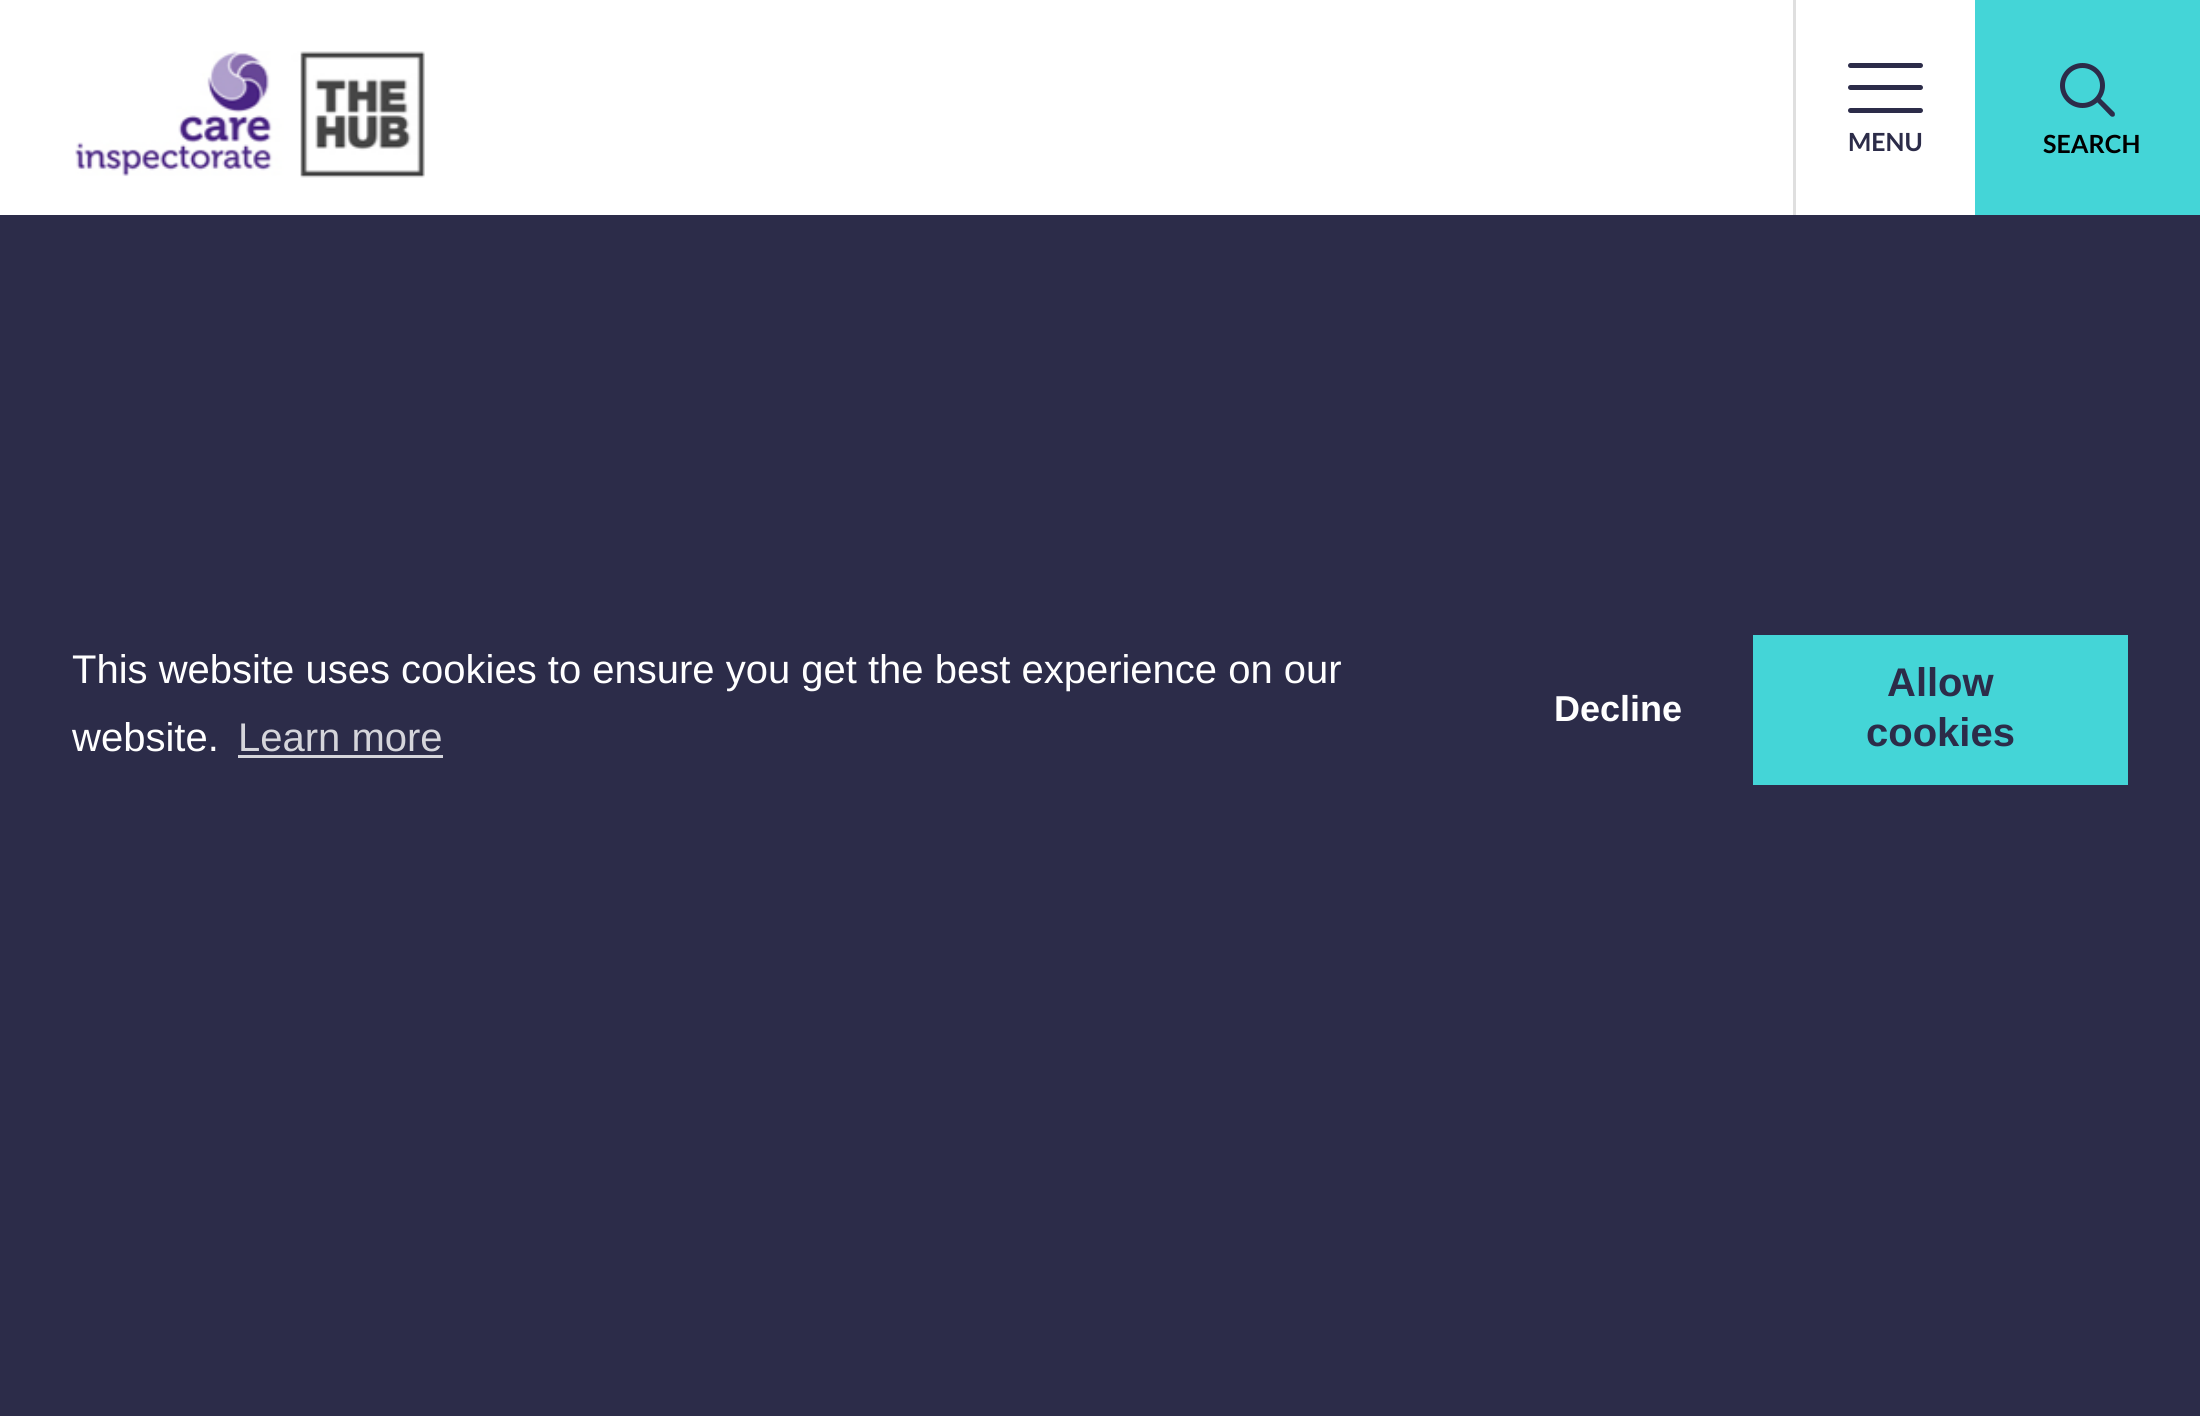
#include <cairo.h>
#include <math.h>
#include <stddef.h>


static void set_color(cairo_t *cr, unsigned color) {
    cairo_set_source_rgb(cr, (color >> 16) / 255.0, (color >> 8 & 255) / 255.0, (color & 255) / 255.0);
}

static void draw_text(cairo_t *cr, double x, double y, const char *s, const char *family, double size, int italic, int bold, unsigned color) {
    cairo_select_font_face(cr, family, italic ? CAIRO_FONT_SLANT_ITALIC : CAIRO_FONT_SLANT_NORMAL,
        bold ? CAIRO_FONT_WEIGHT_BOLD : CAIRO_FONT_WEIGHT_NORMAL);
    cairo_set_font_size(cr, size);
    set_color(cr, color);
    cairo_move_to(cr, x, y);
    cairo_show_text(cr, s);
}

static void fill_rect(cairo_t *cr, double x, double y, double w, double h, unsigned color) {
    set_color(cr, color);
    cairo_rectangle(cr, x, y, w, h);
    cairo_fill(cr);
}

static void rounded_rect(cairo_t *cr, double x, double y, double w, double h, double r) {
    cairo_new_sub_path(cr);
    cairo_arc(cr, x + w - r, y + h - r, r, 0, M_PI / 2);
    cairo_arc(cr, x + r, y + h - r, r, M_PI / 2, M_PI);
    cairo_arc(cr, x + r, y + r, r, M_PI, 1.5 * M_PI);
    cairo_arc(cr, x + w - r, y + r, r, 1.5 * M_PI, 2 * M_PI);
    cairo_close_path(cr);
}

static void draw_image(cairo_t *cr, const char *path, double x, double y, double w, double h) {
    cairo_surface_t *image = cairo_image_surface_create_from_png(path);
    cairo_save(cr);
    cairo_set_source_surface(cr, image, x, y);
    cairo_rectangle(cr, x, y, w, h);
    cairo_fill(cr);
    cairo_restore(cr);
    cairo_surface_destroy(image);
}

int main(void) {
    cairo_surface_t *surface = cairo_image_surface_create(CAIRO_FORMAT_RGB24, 2200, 1416);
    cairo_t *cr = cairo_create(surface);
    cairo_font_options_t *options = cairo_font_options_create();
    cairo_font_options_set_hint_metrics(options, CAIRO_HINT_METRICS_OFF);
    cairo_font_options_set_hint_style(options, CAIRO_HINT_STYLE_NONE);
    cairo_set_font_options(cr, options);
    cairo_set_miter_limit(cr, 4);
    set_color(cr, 0x2C2C49);
    cairo_paint(cr);
    fill_rect(cr, 0, 0, 1975, 215, 0xFFFFFF);
    draw_image(cr, "assets/img1.png", 75, 51, 350, 127);
    fill_rect(cr, 1793, 0, 3, 215, 0xDFDFDF);
    set_color(cr, 0x2C2C49);
    rounded_rect(cr, 1848, 63, 75, 5, 2.5);
    cairo_fill(cr);
    rounded_rect(cr, 1848, 85, 75, 5, 2.5);
    cairo_fill(cr);
    rounded_rect(cr, 1848, 108, 75, 5, 2.5);
    cairo_fill(cr);
    draw_text(cr, 1848, 151, "MENU", "Lato", 25, 0, 1, 0x2C2C49);
    fill_rect(cr, 1975, 0, 225, 215, 0x44D5D7);
    cairo_new_path(cr);
    cairo_arc(cr, 2082.5, 85.5, 20, 0, 2 * M_PI);
    set_color(cr, 0x2C2C49);
    cairo_set_line_width(cr, 5);
    cairo_stroke(cr);
    cairo_new_path(cr);
    cairo_move_to(cr, 2100, 98);
    cairo_line_to(cr, 2114.5, 112.5);
    cairo_curve_to(cr, 2115, 113.5, 2115, 115, 2114.5, 116);
    cairo_curve_to(cr, 2113.5, 117, 2111.5, 117, 2110.5, 116);
    cairo_line_to(cr, 2096.5, 101.5);
    cairo_curve_to(cr, 2095.5, 100.5, 2095.5, 99, 2096.5, 98);
    cairo_curve_to(cr, 2097.5, 97, 2099, 97, 2100, 98);
    cairo_close_path(cr);
    cairo_fill(cr);
    draw_text(cr, 2043, 153, "SEARCH", "Lato", 25, 0, 1, 0x000000);
    draw_text(cr, 72, 683, "This website uses cookies to ensure you get the best experience on our", "Liberation Sans", 40, 0, 0, 0xFFFFFF);
    draw_text(cr, 72, 751, "website.", "Liberation Sans", 40, 0, 0, 0xFFFFFF);
    draw_text(cr, 238, 751, "Learn more", "Liberation Sans", 40, 0, 0, 0xD5D5DB);
    fill_rect(cr, 238, 755, 205, 3, 0xD5D5DB);
    draw_text(cr, 1554, 721, "Decline", "Liberation Sans", 36, 0, 1, 0xFFFFFF);
    fill_rect(cr, 1753, 635, 375, 150, 0x44D5D7);
    draw_text(cr, 1887, 696, "Allow", "Liberation Sans", 40, 0, 1, 0x2C2C49);
    draw_text(cr, 1866, 746, "cookies", "Liberation Sans", 40, 0, 1, 0x2C2C49);
    cairo_surface_write_to_png(surface, "output.png");
    cairo_font_options_destroy(options);
    cairo_destroy(cr);
    cairo_surface_destroy(surface);
    return 0;
}
